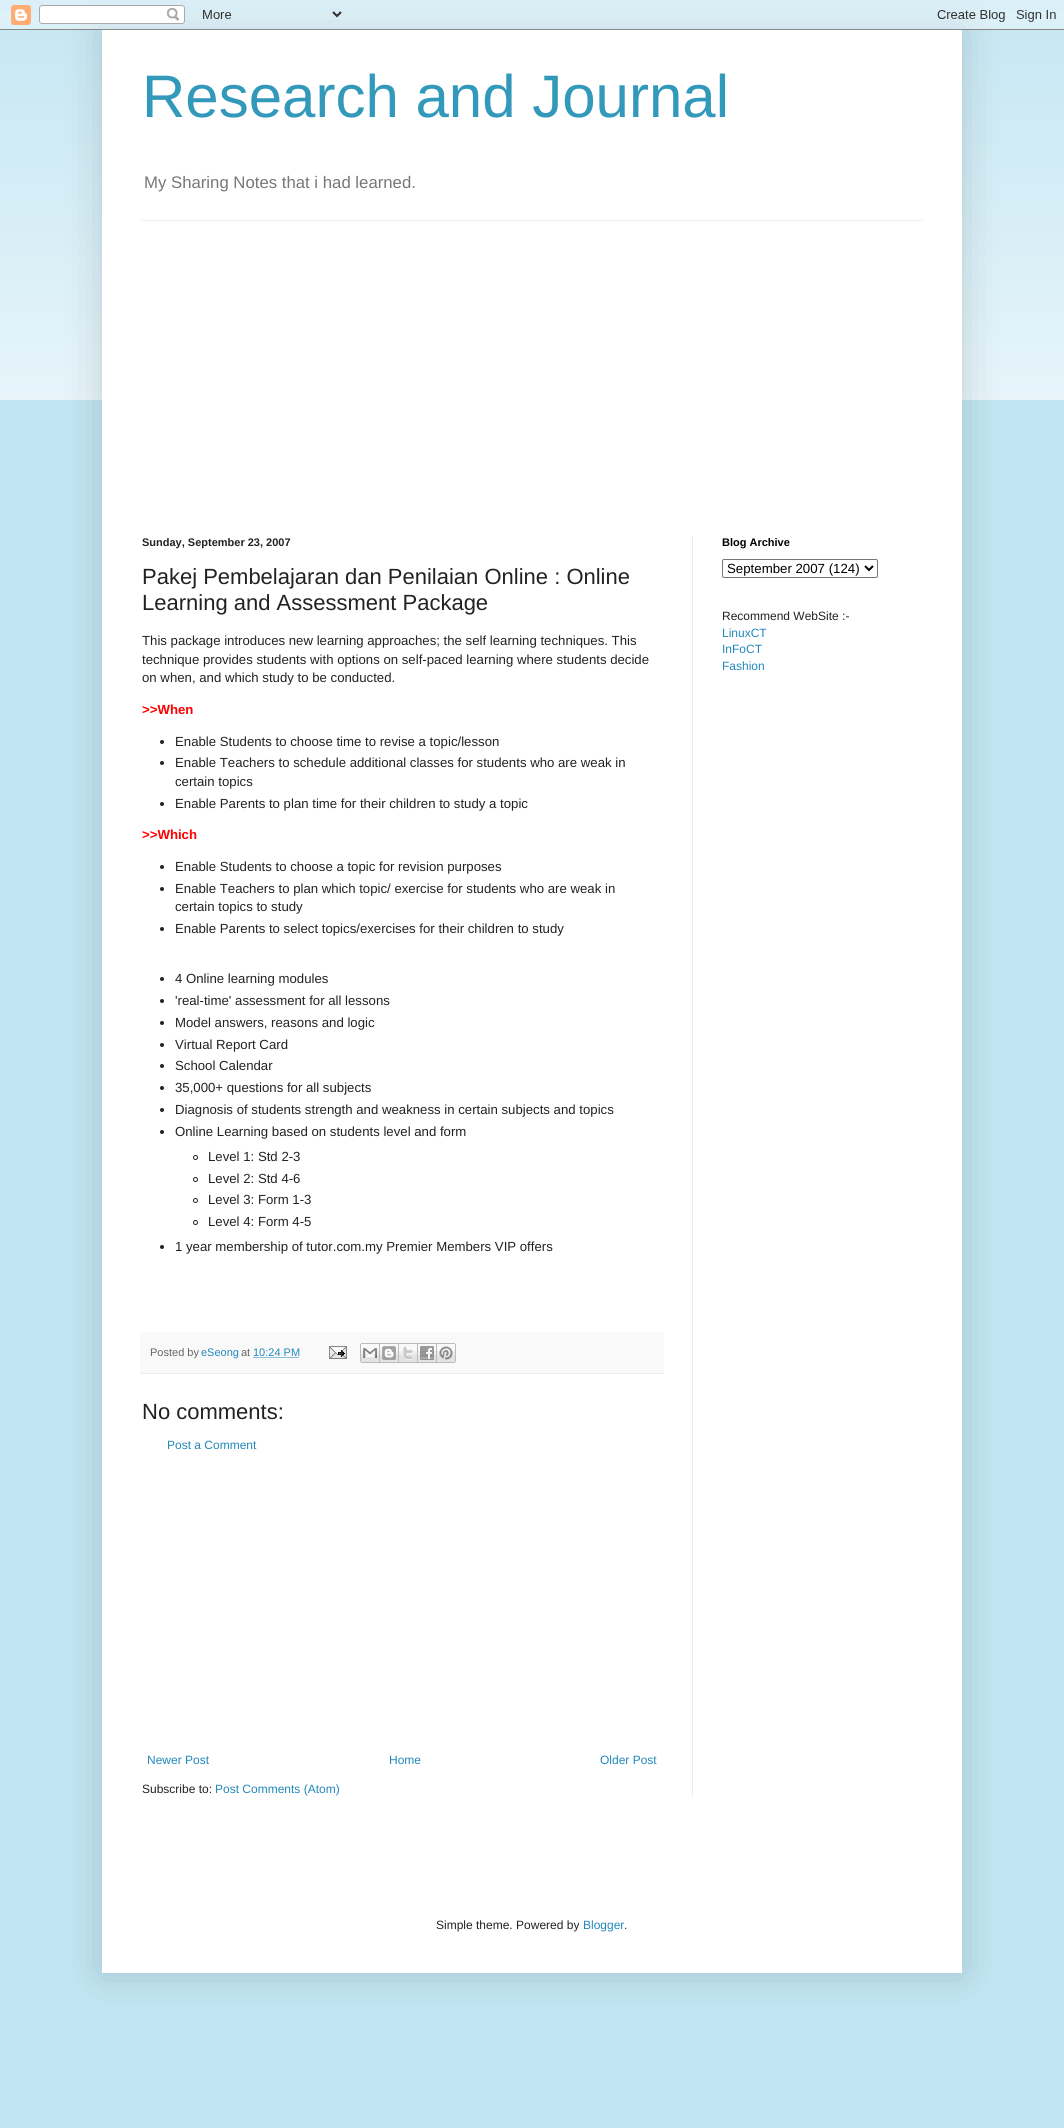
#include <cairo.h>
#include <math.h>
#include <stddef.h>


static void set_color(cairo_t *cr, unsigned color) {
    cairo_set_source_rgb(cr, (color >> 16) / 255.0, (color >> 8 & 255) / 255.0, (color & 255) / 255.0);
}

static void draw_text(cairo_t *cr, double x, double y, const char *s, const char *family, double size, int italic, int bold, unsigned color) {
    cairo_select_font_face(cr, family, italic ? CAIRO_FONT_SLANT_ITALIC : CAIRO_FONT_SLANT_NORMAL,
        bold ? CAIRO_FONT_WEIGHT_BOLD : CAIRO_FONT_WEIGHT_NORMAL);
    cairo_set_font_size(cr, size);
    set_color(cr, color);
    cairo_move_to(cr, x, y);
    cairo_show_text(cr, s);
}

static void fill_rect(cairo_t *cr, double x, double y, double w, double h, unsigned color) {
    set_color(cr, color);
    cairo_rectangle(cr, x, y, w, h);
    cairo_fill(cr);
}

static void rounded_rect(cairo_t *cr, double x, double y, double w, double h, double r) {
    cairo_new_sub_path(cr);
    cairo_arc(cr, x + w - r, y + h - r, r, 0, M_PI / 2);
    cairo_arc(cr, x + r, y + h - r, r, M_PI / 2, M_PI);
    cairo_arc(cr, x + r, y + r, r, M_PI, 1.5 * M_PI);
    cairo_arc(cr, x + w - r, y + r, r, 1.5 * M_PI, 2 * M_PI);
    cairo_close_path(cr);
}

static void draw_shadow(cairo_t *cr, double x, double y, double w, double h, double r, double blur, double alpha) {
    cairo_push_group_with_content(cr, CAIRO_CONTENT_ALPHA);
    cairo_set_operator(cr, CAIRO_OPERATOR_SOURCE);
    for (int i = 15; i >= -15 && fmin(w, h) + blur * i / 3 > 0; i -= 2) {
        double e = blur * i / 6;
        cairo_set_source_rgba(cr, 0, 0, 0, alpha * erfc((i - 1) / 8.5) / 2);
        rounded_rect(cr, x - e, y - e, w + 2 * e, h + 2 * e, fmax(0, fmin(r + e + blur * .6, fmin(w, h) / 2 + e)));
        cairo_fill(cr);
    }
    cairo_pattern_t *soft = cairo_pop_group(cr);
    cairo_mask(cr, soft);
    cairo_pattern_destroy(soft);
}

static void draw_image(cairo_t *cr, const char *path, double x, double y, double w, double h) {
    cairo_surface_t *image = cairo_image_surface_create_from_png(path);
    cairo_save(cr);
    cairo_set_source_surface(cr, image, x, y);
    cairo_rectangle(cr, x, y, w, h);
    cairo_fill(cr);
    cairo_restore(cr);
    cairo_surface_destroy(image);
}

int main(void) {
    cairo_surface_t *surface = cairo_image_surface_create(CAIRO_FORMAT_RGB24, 1064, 2128);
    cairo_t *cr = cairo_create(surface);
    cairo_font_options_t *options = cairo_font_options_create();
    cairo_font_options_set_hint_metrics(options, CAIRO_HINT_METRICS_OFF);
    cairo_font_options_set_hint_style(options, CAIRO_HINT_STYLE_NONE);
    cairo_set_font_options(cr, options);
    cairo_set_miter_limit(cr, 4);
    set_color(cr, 0xC1E5F2);
    cairo_paint(cr);
    draw_image(cr, "assets/img2.png", 0, 10, 1064, 390);
    set_color(cr, 0x000000);
    draw_shadow(cr, 102, 30, 860, 1943, 0, 20, 0.15);
    draw_image(cr, "assets/img1.png", 0, 0, 1064, 30);
    fill_rect(cr, 102, 30, 860, 1943, 0xFFFFFF);
    draw_text(cr, 142, 117, "Research and Journal", "Liberation Sans", 60, 0, 0, 0x3399BB);
    draw_text(cr, 144, 188, "My Sharing Notes that i had learned.", "Liberation Sans", 16.75, 0, 0, 0x777777);
    fill_rect(cr, 142, 220, 780, 1, 0xEEEEEE);
    fill_rect(cr, 692, 536, 1, 1261, 0xEEEEEE);
    draw_text(cr, 142, 546, "Sunday, September 23, 2007", "Liberation Sans", 11, 0, 1, 0x222222);
    draw_text(cr, 142, 584, "Pakej Pembelajaran dan Penilaian Online : Online", "Liberation Sans", 22, 0, 0, 0x222222);
    draw_text(cr, 142, 610, "Learning and Assessment Package", "Liberation Sans", 22, 0, 0, 0x222222);
    draw_text(cr, 142, 645, "This package introduces new learning approaches; the self learning techniques. This", "Liberation Sans", 13.2, 0, 0, 0x222222);
    draw_text(cr, 142, 664, "technique provides students with options on self-paced learning where students decide", "Liberation Sans", 13.2, 0, 0, 0x222222);
    draw_text(cr, 142, 682, "on when, and which study to be conducted.", "Liberation Sans", 13.2, 0, 0, 0x222222);
    draw_text(cr, 142, 714, ">>When", "Liberation Sans", 13.2, 0, 1, 0xFF0000);
    set_color(cr, 0x222222);
    cairo_new_path(cr);
    cairo_arc(cr, 162, 742, 2, 0, 2 * M_PI);
    cairo_fill(cr);
    draw_text(cr, 175, 746, "Enable Students to choose time to revise a topic/lesson", "Liberation Sans", 13.2, 0, 0, 0x222222);
    cairo_new_path(cr);
    cairo_arc(cr, 162, 763, 2, 0, 2 * M_PI);
    cairo_fill(cr);
    draw_text(cr, 175, 767, "Enable Teachers to schedule additional classes for students who are weak in", "Liberation Sans", 13.2, 0, 0, 0x222222);
    draw_text(cr, 175, 786, "certain topics", "Liberation Sans", 13.2, 0, 0, 0x222222);
    cairo_new_path(cr);
    cairo_arc(cr, 162, 804, 2, 0, 2 * M_PI);
    cairo_fill(cr);
    draw_text(cr, 175, 808, "Enable Parents to plan time for their children to study a topic", "Liberation Sans", 13.2, 0, 0, 0x222222);
    draw_text(cr, 142, 839, ">>Which", "Liberation Sans", 13.2, 0, 1, 0xFF0000);
    set_color(cr, 0x222222);
    cairo_new_path(cr);
    cairo_arc(cr, 162, 867, 2, 0, 2 * M_PI);
    cairo_fill(cr);
    draw_text(cr, 175, 871, "Enable Students to choose a topic for revision purposes", "Liberation Sans", 13.2, 0, 0, 0x222222);
    cairo_new_path(cr);
    cairo_arc(cr, 162, 889, 2, 0, 2 * M_PI);
    cairo_fill(cr);
    draw_text(cr, 175, 893, "Enable Teachers to plan which topic/ exercise for students who are weak in", "Liberation Sans", 13.2, 0, 0, 0x222222);
    draw_text(cr, 175, 911, "certain topics to study", "Liberation Sans", 13.2, 0, 0, 0x222222);
    cairo_new_path(cr);
    cairo_arc(cr, 162, 929, 2, 0, 2 * M_PI);
    cairo_fill(cr);
    draw_text(cr, 175, 933, "Enable Parents to select topics/exercises for their children to study", "Liberation Sans", 13.2, 0, 0, 0x222222);
    cairo_new_path(cr);
    cairo_arc(cr, 162, 979, 2, 0, 2 * M_PI);
    cairo_fill(cr);
    draw_text(cr, 175, 983, "4 Online learning modules", "Liberation Sans", 13.2, 0, 0, 0x222222);
    cairo_new_path(cr);
    cairo_arc(cr, 162, 1001, 2, 0, 2 * M_PI);
    cairo_fill(cr);
    draw_text(cr, 175, 1005, "'real-time' assessment for all lessons", "Liberation Sans", 13.2, 0, 0, 0x222222);
    cairo_new_path(cr);
    cairo_arc(cr, 162, 1023, 2, 0, 2 * M_PI);
    cairo_fill(cr);
    draw_text(cr, 175, 1027, "Model answers, reasons and logic", "Liberation Sans", 13.2, 0, 0, 0x222222);
    cairo_new_path(cr);
    cairo_arc(cr, 162, 1045, 2, 0, 2 * M_PI);
    cairo_fill(cr);
    draw_text(cr, 175, 1049, "Virtual Report Card", "Liberation Sans", 13.2, 0, 0, 0x222222);
    cairo_new_path(cr);
    cairo_arc(cr, 162, 1066, 2, 0, 2 * M_PI);
    cairo_fill(cr);
    draw_text(cr, 175, 1070, "School Calendar", "Liberation Sans", 13.2, 0, 0, 0x222222);
    cairo_new_path(cr);
    cairo_arc(cr, 162, 1088, 2, 0, 2 * M_PI);
    cairo_fill(cr);
    draw_text(cr, 175, 1092, "35,000+ questions for all subjects", "Liberation Sans", 13.2, 0, 0, 0x222222);
    cairo_new_path(cr);
    cairo_arc(cr, 162, 1110, 2, 0, 2 * M_PI);
    cairo_fill(cr);
    draw_text(cr, 175, 1114, "Diagnosis of students strength and weakness in certain subjects and topics", "Liberation Sans", 13.2, 0, 0, 0x222222);
    cairo_new_path(cr);
    cairo_arc(cr, 162, 1132, 2, 0, 2 * M_PI);
    cairo_fill(cr);
    draw_text(cr, 175, 1136, "Online Learning based on students level and form", "Liberation Sans", 13.2, 0, 0, 0x222222);
    cairo_new_path(cr);
    cairo_arc(cr, 195.5, 1157.5, 2, 0, 2 * M_PI);
    cairo_set_line_width(cr, 1);
    cairo_stroke(cr);
    draw_text(cr, 208, 1161, "Level 1: Std 2-3", "Liberation Sans", 13.2, 0, 0, 0x222222);
    cairo_new_path(cr);
    cairo_arc(cr, 195.5, 1179.5, 2, 0, 2 * M_PI);
    cairo_stroke(cr);
    draw_text(cr, 208, 1183, "Level 2: Std 4-6", "Liberation Sans", 13.2, 0, 0, 0x222222);
    cairo_new_path(cr);
    cairo_arc(cr, 195.5, 1200.5, 2, 0, 2 * M_PI);
    cairo_stroke(cr);
    draw_text(cr, 208, 1204, "Level 3: Form 1-3", "Liberation Sans", 13.2, 0, 0, 0x222222);
    cairo_new_path(cr);
    cairo_arc(cr, 195.5, 1222.5, 2, 0, 2 * M_PI);
    cairo_stroke(cr);
    draw_text(cr, 208, 1226, "Level 4: Form 4-5", "Liberation Sans", 13.2, 0, 0, 0x222222);
    cairo_new_path(cr);
    cairo_arc(cr, 162, 1247, 2, 0, 2 * M_PI);
    cairo_fill(cr);
    draw_text(cr, 175, 1251, "1 year membership of tutor.com.my Premier Members VIP offers", "Liberation Sans", 13.2, 0, 0, 0x222222);
    fill_rect(cr, 140, 1332, 524, 41, 0xF9F9F9);
    fill_rect(cr, 140, 1373, 524, 1, 0xEEEEEE);
    draw_text(cr, 150, 1356, "Posted by", "Liberation Sans", 11, 0, 0, 0x666666);
    draw_text(cr, 201, 1356, "eSeong", "Liberation Sans", 11, 0, 0, 0x2288BB);
    draw_text(cr, 241, 1356, "at", "Liberation Sans", 11, 0, 0, 0x666666);
    draw_text(cr, 253, 1356, "10:24 PM", "Liberation Sans", 11, 0, 0, 0x2288BB);
    cairo_new_path(cr);
    cairo_move_to(cr, 253.5, 1357.5);
    cairo_line_to(cr, 299.5, 1357.5);
    cairo_set_dash(cr, (double[]){1, 1}, 2, 0);
    cairo_stroke(cr);
    draw_image(cr, "assets/img3.png", 329, 1346, 18, 13);
    draw_image(cr, "assets/img4.png", 360, 1343, 20, 20);
    draw_image(cr, "assets/img5.png", 380, 1343, 19, 20);
    draw_image(cr, "assets/img6.png", 399, 1343, 19, 20);
    draw_image(cr, "assets/img7.png", 418, 1343, 19, 20);
    draw_image(cr, "assets/img8.png", 437, 1343, 19, 20);
    draw_text(cr, 142, 1419, "No comments:", "Liberation Sans", 22, 0, 0, 0x222222);
    draw_text(cr, 167, 1449, "Post a Comment", "Liberation Sans", 12, 0, 0, 0x2288BB);
    draw_text(cr, 147, 1764, "Newer Post", "Liberation Sans", 12, 0, 0, 0x2288BB);
    draw_text(cr, 389, 1764, "Home", "Liberation Sans", 12, 0, 0, 0x2288BB);
    draw_text(cr, 600, 1764, "Older Post", "Liberation Sans", 12, 0, 0, 0x2288BB);
    draw_text(cr, 142, 1793, "Subscribe to:", "Liberation Sans", 12, 0, 0, 0x222222);
    draw_text(cr, 215, 1793, "Post Comments (Atom)", "Liberation Sans", 12, 0, 0, 0x2288BB);
    draw_text(cr, 722, 546, "Blog Archive", "Liberation Sans", 11, 0, 1, 0x000000);
    rounded_rect(cr, 722.5, 559.5, 155, 18, 1.5);
    set_color(cr, 0x767676);
    cairo_set_dash(cr, NULL, 0, 0);
    cairo_stroke(cr);
    cairo_new_path(cr);
    cairo_move_to(cr, 865, 566);
    cairo_line_to(cr, 869, 570);
    cairo_line_to(cr, 873, 566);
    set_color(cr, 0x000000);
    cairo_set_line_width(cr, 2);
    cairo_stroke(cr);
    draw_text(cr, 727, 573, "September 2007 (124)", "Liberation Sans", 13.25, 0, 0, 0x000000);
    draw_text(cr, 722, 620, "Recommend WebSite :-", "Liberation Sans", 12, 0, 0, 0x222222);
    draw_text(cr, 722, 637, "LinuxCT", "Liberation Sans", 12, 0, 0, 0x2288BB);
    draw_text(cr, 722, 653, "InFoCT", "Liberation Sans", 12, 0, 0, 0x2288BB);
    draw_text(cr, 722, 670, "Fashion", "Liberation Sans", 12, 0, 0, 0x2288BB);
    draw_text(cr, 436, 1929, "Simple theme. Powered by", "Liberation Sans", 12, 0, 0, 0x222222);
    draw_text(cr, 583, 1929, "Blogger", "Liberation Sans", 12, 0, 0, 0x2288BB);
    draw_text(cr, 624, 1929, ".", "Liberation Sans", 12, 0, 0, 0x222222);
    cairo_surface_write_to_png(surface, "output.png");
    cairo_font_options_destroy(options);
    cairo_destroy(cr);
    cairo_surface_destroy(surface);
    return 0;
}
